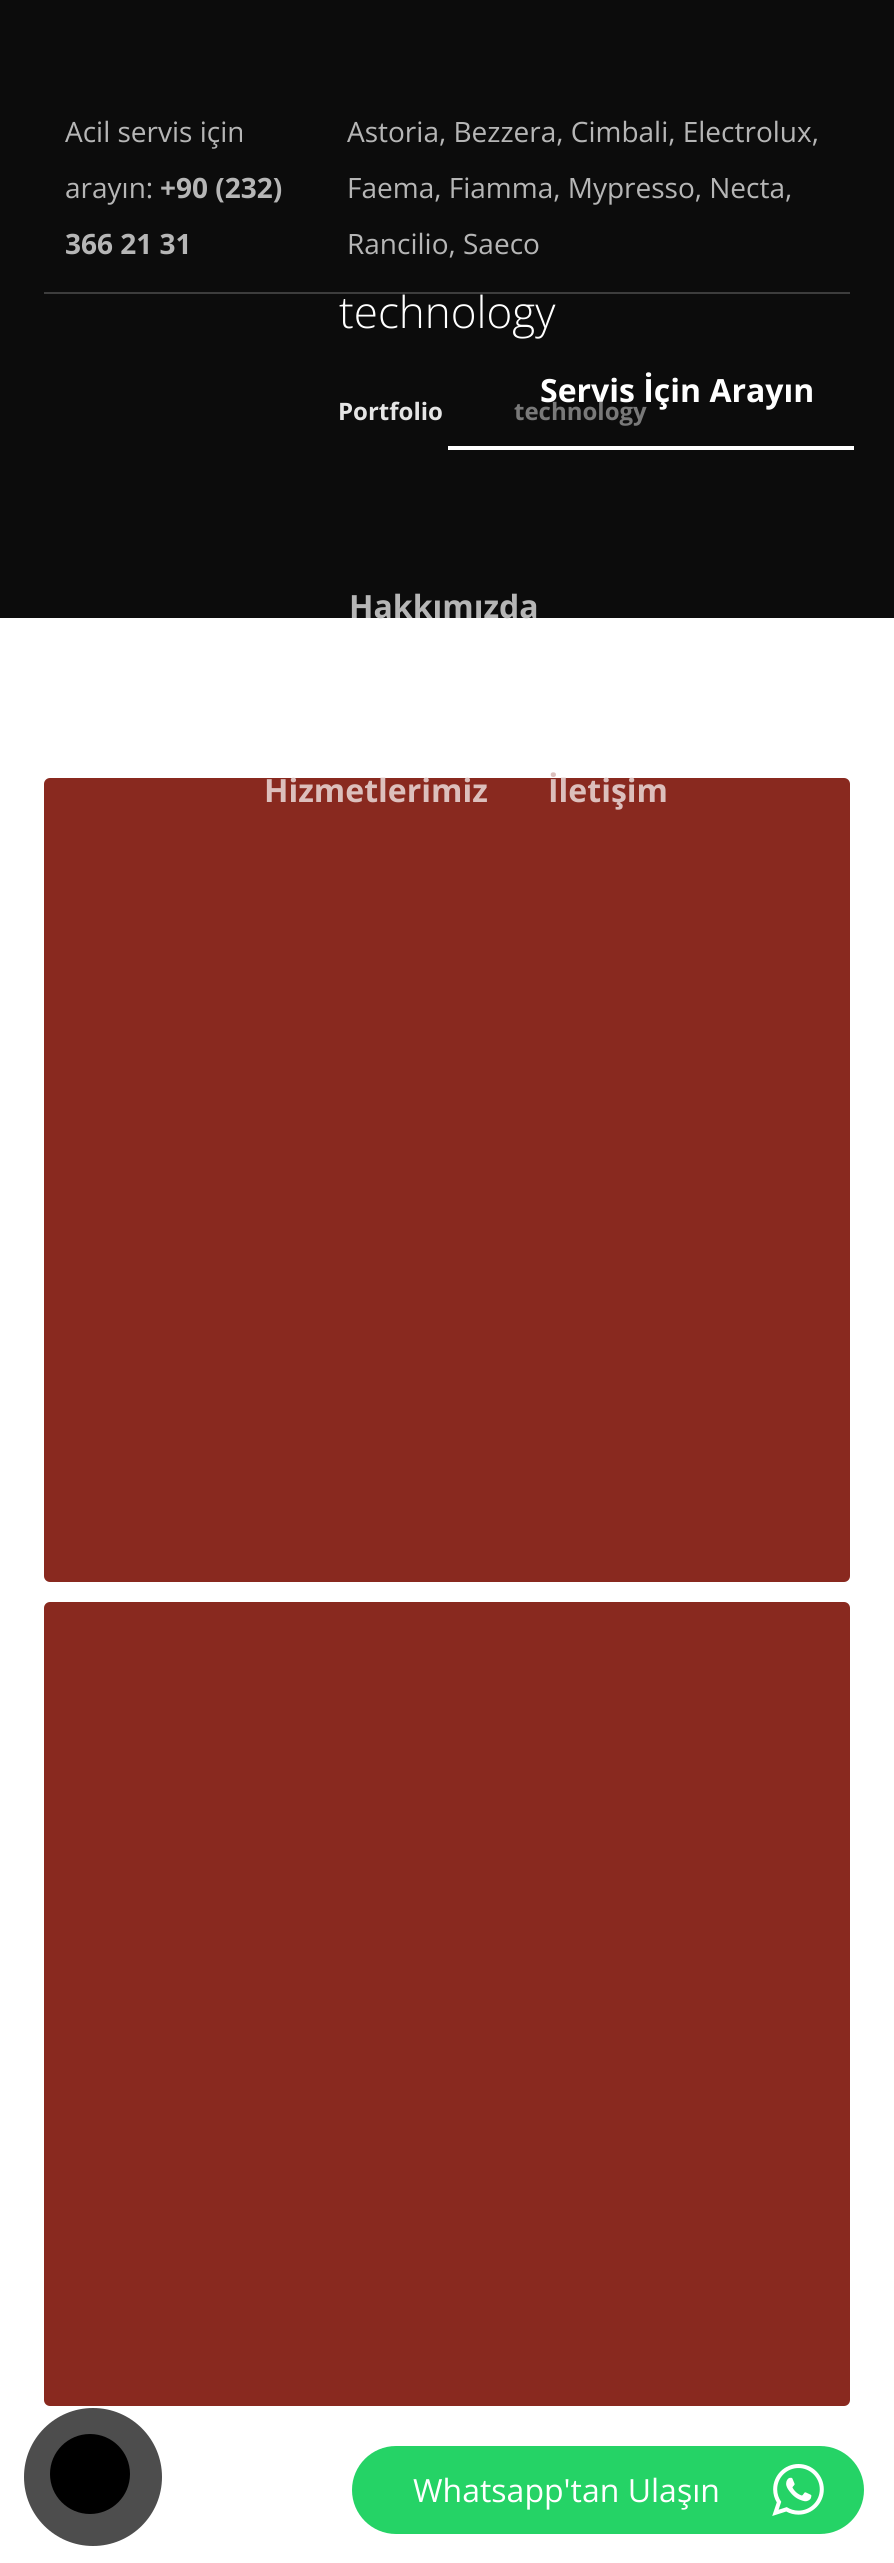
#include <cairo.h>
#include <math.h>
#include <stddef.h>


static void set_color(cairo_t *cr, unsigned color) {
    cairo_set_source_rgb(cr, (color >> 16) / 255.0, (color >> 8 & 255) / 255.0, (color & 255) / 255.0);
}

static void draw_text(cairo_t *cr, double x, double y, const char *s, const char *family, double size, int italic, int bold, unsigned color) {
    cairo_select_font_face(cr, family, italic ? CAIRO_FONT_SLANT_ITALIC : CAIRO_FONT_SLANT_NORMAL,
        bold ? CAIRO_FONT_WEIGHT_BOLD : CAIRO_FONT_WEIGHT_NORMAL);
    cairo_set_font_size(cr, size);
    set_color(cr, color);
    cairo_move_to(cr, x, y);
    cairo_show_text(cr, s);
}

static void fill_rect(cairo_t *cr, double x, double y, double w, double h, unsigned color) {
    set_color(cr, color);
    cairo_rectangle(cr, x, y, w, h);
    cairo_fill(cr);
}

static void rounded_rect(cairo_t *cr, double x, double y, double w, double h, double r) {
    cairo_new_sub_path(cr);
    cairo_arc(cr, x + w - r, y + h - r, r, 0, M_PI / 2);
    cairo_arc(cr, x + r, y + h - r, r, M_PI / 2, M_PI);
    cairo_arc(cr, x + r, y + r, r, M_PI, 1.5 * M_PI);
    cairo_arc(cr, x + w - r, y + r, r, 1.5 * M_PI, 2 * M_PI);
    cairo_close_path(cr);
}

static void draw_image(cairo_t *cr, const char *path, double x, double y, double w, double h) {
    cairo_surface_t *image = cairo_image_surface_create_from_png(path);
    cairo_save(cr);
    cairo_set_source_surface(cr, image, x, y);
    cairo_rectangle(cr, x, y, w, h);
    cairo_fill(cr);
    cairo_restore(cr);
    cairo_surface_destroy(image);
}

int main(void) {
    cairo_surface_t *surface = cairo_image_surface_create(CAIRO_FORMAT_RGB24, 894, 2563);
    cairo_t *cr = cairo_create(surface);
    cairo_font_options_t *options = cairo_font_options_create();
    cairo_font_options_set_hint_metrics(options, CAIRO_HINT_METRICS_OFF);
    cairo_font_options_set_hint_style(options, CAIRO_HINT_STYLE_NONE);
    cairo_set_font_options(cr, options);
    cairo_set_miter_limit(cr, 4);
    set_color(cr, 0xFFFFFF);
    cairo_paint(cr);
    fill_rect(cr, 0, 0, 894, 618, 0x0C0C0C);
    fill_rect(cr, 44, 292, 806, 2, 0x3D3D3D);
    draw_text(cr, 65, 142, "Acil servis için", "Open Sans", 28, 0, 0, 0xB6B6B6);
    draw_text(cr, 65, 198, "arayın:", "Open Sans", 28, 0, 0, 0xB6B6B6);
    draw_text(cr, 160, 198, "+90 (232)", "Open Sans", 28, 0, 1, 0xB6B6B6);
    draw_text(cr, 65, 254, "366 21 31", "Open Sans", 28, 0, 1, 0xB6B6B6);
    draw_text(cr, 347, 142, "Astoria, Bezzera, Cimbali, Electrolux,", "Open Sans", 28, 0, 0, 0xB6B6B6);
    draw_text(cr, 347, 198, "Faema, Fiamma, Mypresso, Necta,", "Open Sans", 28, 0, 0, 0xB6B6B6);
    draw_text(cr, 347, 254, "Rancilio, Saeco", "Open Sans", 28, 0, 0, 0xB6B6B6);
    fill_rect(cr, 448, 446, 406, 4, 0xFFFFFF);
    draw_text(cr, 540, 402, "Servis İçin Arayın", "Open Sans", 32, 0, 1, 0xFFFFFF);
    draw_text(cr, 349, 618, "Hakkımızda", "Open Sans", 32, 0, 1, 0xB6B6B6);
    set_color(cr, 0x89291F);
    rounded_rect(cr, 44, 778, 806, 804, 6);
    cairo_fill(cr);
    draw_text(cr, 264, 802, "Hizmetlerimiz", "Open Sans", 32, 0, 1, 0xDCBFBC);
    draw_text(cr, 548, 802, "İletişim", "Open Sans", 32, 0, 1, 0xDCBFBC);
    draw_text(cr, 339, 328, "technology", "Open Sans Light", 44, 0, 0, 0xFFFFFF);
    draw_text(cr, 338, 420, "Portfolio", "Open Sans", 24, 0, 1, 0xE5E5E5);
    draw_text(cr, 514, 420, "technology", "Open Sans", 24, 0, 1, 0x797979);
    set_color(cr, 0x89291F);
    rounded_rect(cr, 44, 1602, 806, 804, 6);
    cairo_fill(cr);
    set_color(cr, 0x4D4D4D);
    cairo_arc(cr, 93, 2477, 69, 0, 2 * M_PI);
    cairo_fill(cr);
    set_color(cr, 0x000000);
    cairo_arc(cr, 90, 2474, 40, 0, 2 * M_PI);
    cairo_fill(cr);
    set_color(cr, 0x25D366);
    rounded_rect(cr, 352, 2446, 512, 88, 44);
    cairo_fill(cr);
    draw_text(cr, 413, 2502, "Whatsapp'tan Ulaşın", "Open Sans", 32, 0, 0, 0xFFFFFF);
    draw_image(cr, "assets/img1.png", 772, 2464, 52, 52);
    cairo_surface_write_to_png(surface, "output.png");
    cairo_font_options_destroy(options);
    cairo_destroy(cr);
    cairo_surface_destroy(surface);
    return 0;
}
